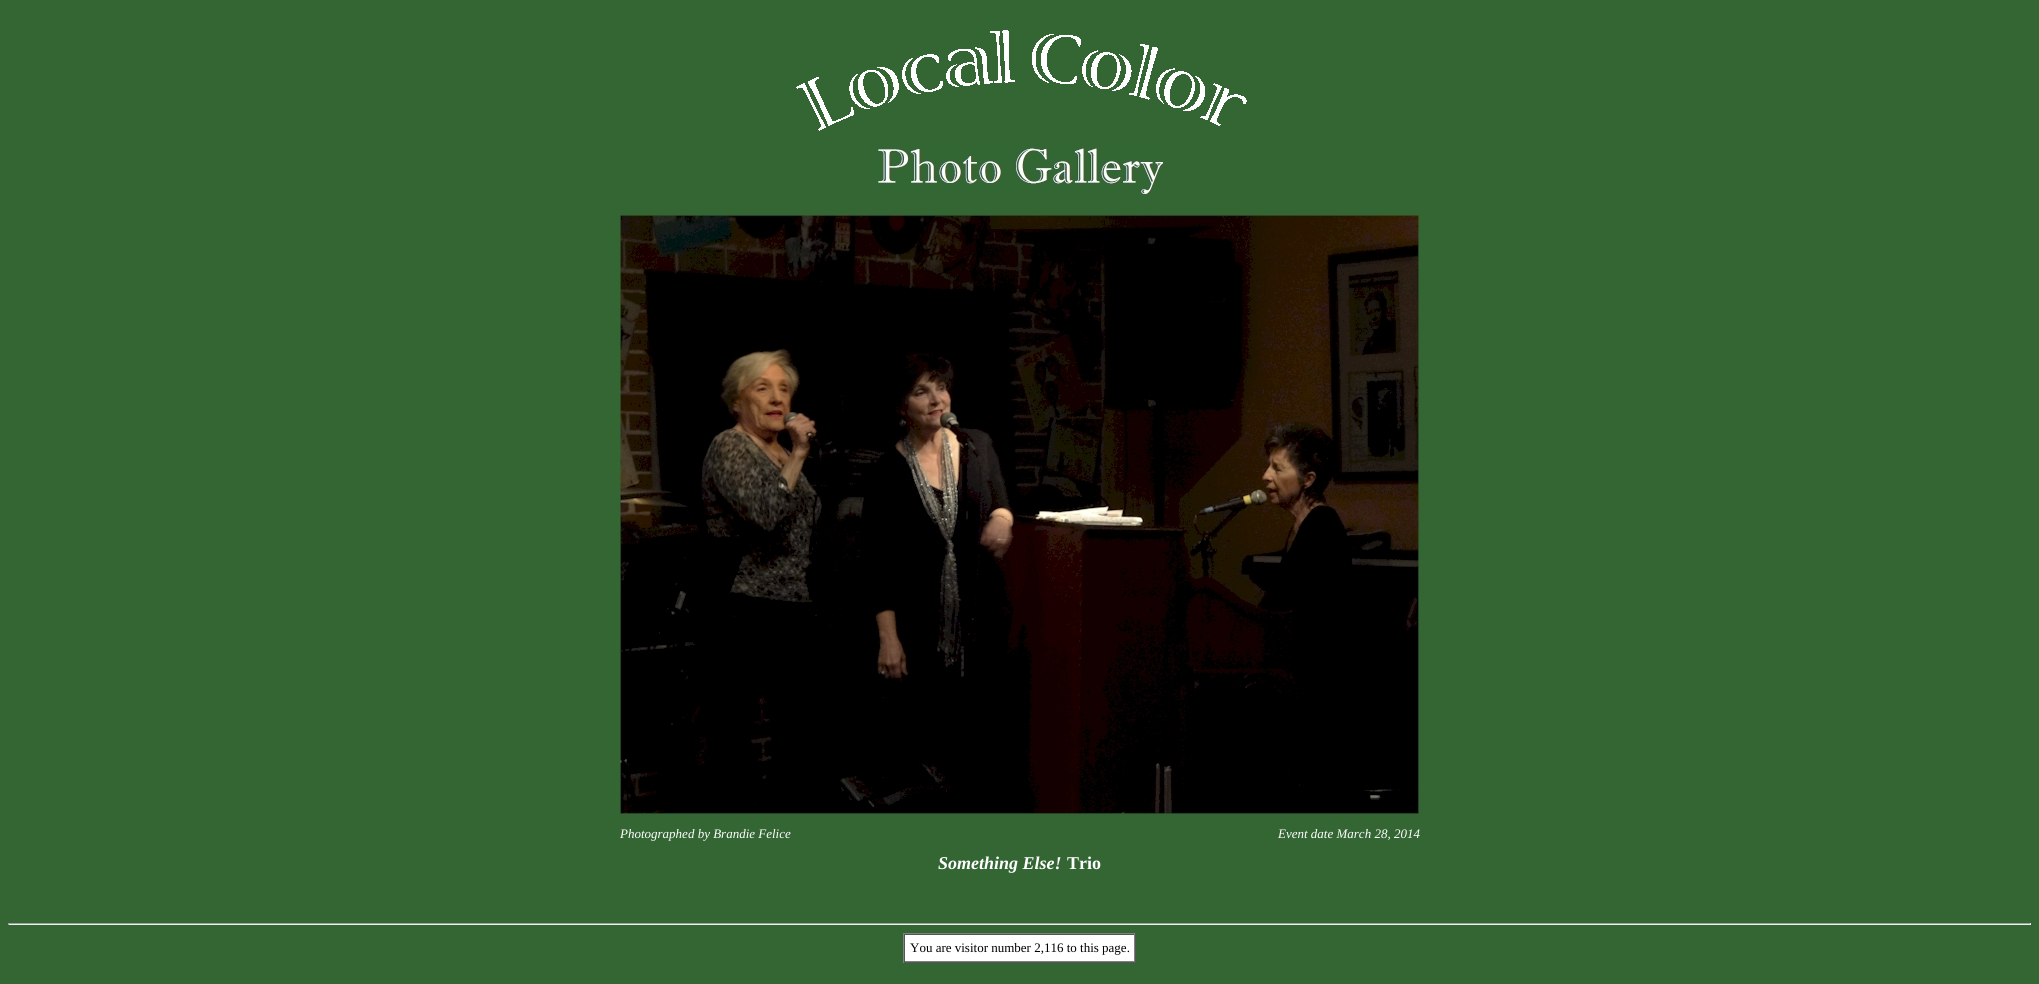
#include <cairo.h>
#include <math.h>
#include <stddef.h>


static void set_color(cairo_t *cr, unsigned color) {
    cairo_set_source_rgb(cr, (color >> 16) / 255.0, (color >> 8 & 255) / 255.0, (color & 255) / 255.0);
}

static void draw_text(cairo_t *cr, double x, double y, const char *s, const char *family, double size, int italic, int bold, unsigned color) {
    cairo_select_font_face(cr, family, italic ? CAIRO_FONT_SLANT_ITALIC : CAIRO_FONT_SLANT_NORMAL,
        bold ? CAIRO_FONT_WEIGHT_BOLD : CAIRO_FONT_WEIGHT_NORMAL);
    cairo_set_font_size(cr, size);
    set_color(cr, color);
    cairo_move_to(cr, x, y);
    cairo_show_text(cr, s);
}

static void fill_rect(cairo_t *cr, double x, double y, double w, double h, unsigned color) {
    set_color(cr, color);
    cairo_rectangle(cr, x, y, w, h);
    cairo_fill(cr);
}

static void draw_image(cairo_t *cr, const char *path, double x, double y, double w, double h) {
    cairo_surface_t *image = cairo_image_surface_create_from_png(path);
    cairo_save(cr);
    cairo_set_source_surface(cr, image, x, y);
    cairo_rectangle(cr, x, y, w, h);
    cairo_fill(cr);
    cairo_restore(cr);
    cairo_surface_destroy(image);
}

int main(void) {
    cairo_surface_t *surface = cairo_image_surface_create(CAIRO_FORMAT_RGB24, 2039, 984);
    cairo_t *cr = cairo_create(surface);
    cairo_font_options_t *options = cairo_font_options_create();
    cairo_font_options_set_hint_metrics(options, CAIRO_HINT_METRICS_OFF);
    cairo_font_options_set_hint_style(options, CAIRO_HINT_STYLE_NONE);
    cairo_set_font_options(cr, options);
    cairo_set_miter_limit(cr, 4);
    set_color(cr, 0x336633);
    cairo_paint(cr);
    draw_image(cr, "assets/img1.png", 796, 30, 451, 101);
    draw_image(cr, "assets/img2.png", 877, 147, 286, 47);
    draw_image(cr, "assets/img3.png", 620, 215, 800, 600);
    draw_text(cr, 620, 838, "Photographed by Brandie Felice", "Liberation Serif", 13, 1, 0, 0xFFFFFF);
    draw_text(cr, 1278, 838, "Event date March 28, 2014", "Liberation Serif", 13, 1, 0, 0xFFFFFF);
    draw_text(cr, 938, 869, "Something Else!", "Liberation Serif", 18, 1, 1, 0xFFFFFF);
    draw_text(cr, 1067, 869, "Trio", "Liberation Serif", 18, 0, 1, 0xFFFFFF);
    fill_rect(cr, 8, 923, 2023, 1, 0x9F9F9F);
    fill_rect(cr, 2030, 923, 1, 2, 0xEEEEEE);
    fill_rect(cr, 8, 924, 2023, 1, 0xEEEEEE);
    fill_rect(cr, 8, 923, 1, 2, 0x9F9F9F);
    fill_rect(cr, 905, 935, 229, 26, 0xFFFFFF);
    fill_rect(cr, 903, 933, 233, 1, 0x808080);
    fill_rect(cr, 1135, 933, 1, 30, 0x555555);
    fill_rect(cr, 903, 962, 233, 1, 0x555555);
    fill_rect(cr, 903, 933, 1, 30, 0x808080);
    fill_rect(cr, 904, 934, 231, 1, 0x555555);
    fill_rect(cr, 1134, 934, 1, 28, 0x808080);
    fill_rect(cr, 904, 961, 231, 1, 0x808080);
    fill_rect(cr, 904, 934, 1, 28, 0x555555);
    draw_text(cr, 910, 952, "You are visitor number 2,116 to this page.", "Liberation Serif", 13, 0, 0, 0x000000);
    cairo_surface_write_to_png(surface, "output.png");
    cairo_font_options_destroy(options);
    cairo_destroy(cr);
    cairo_surface_destroy(surface);
    return 0;
}
